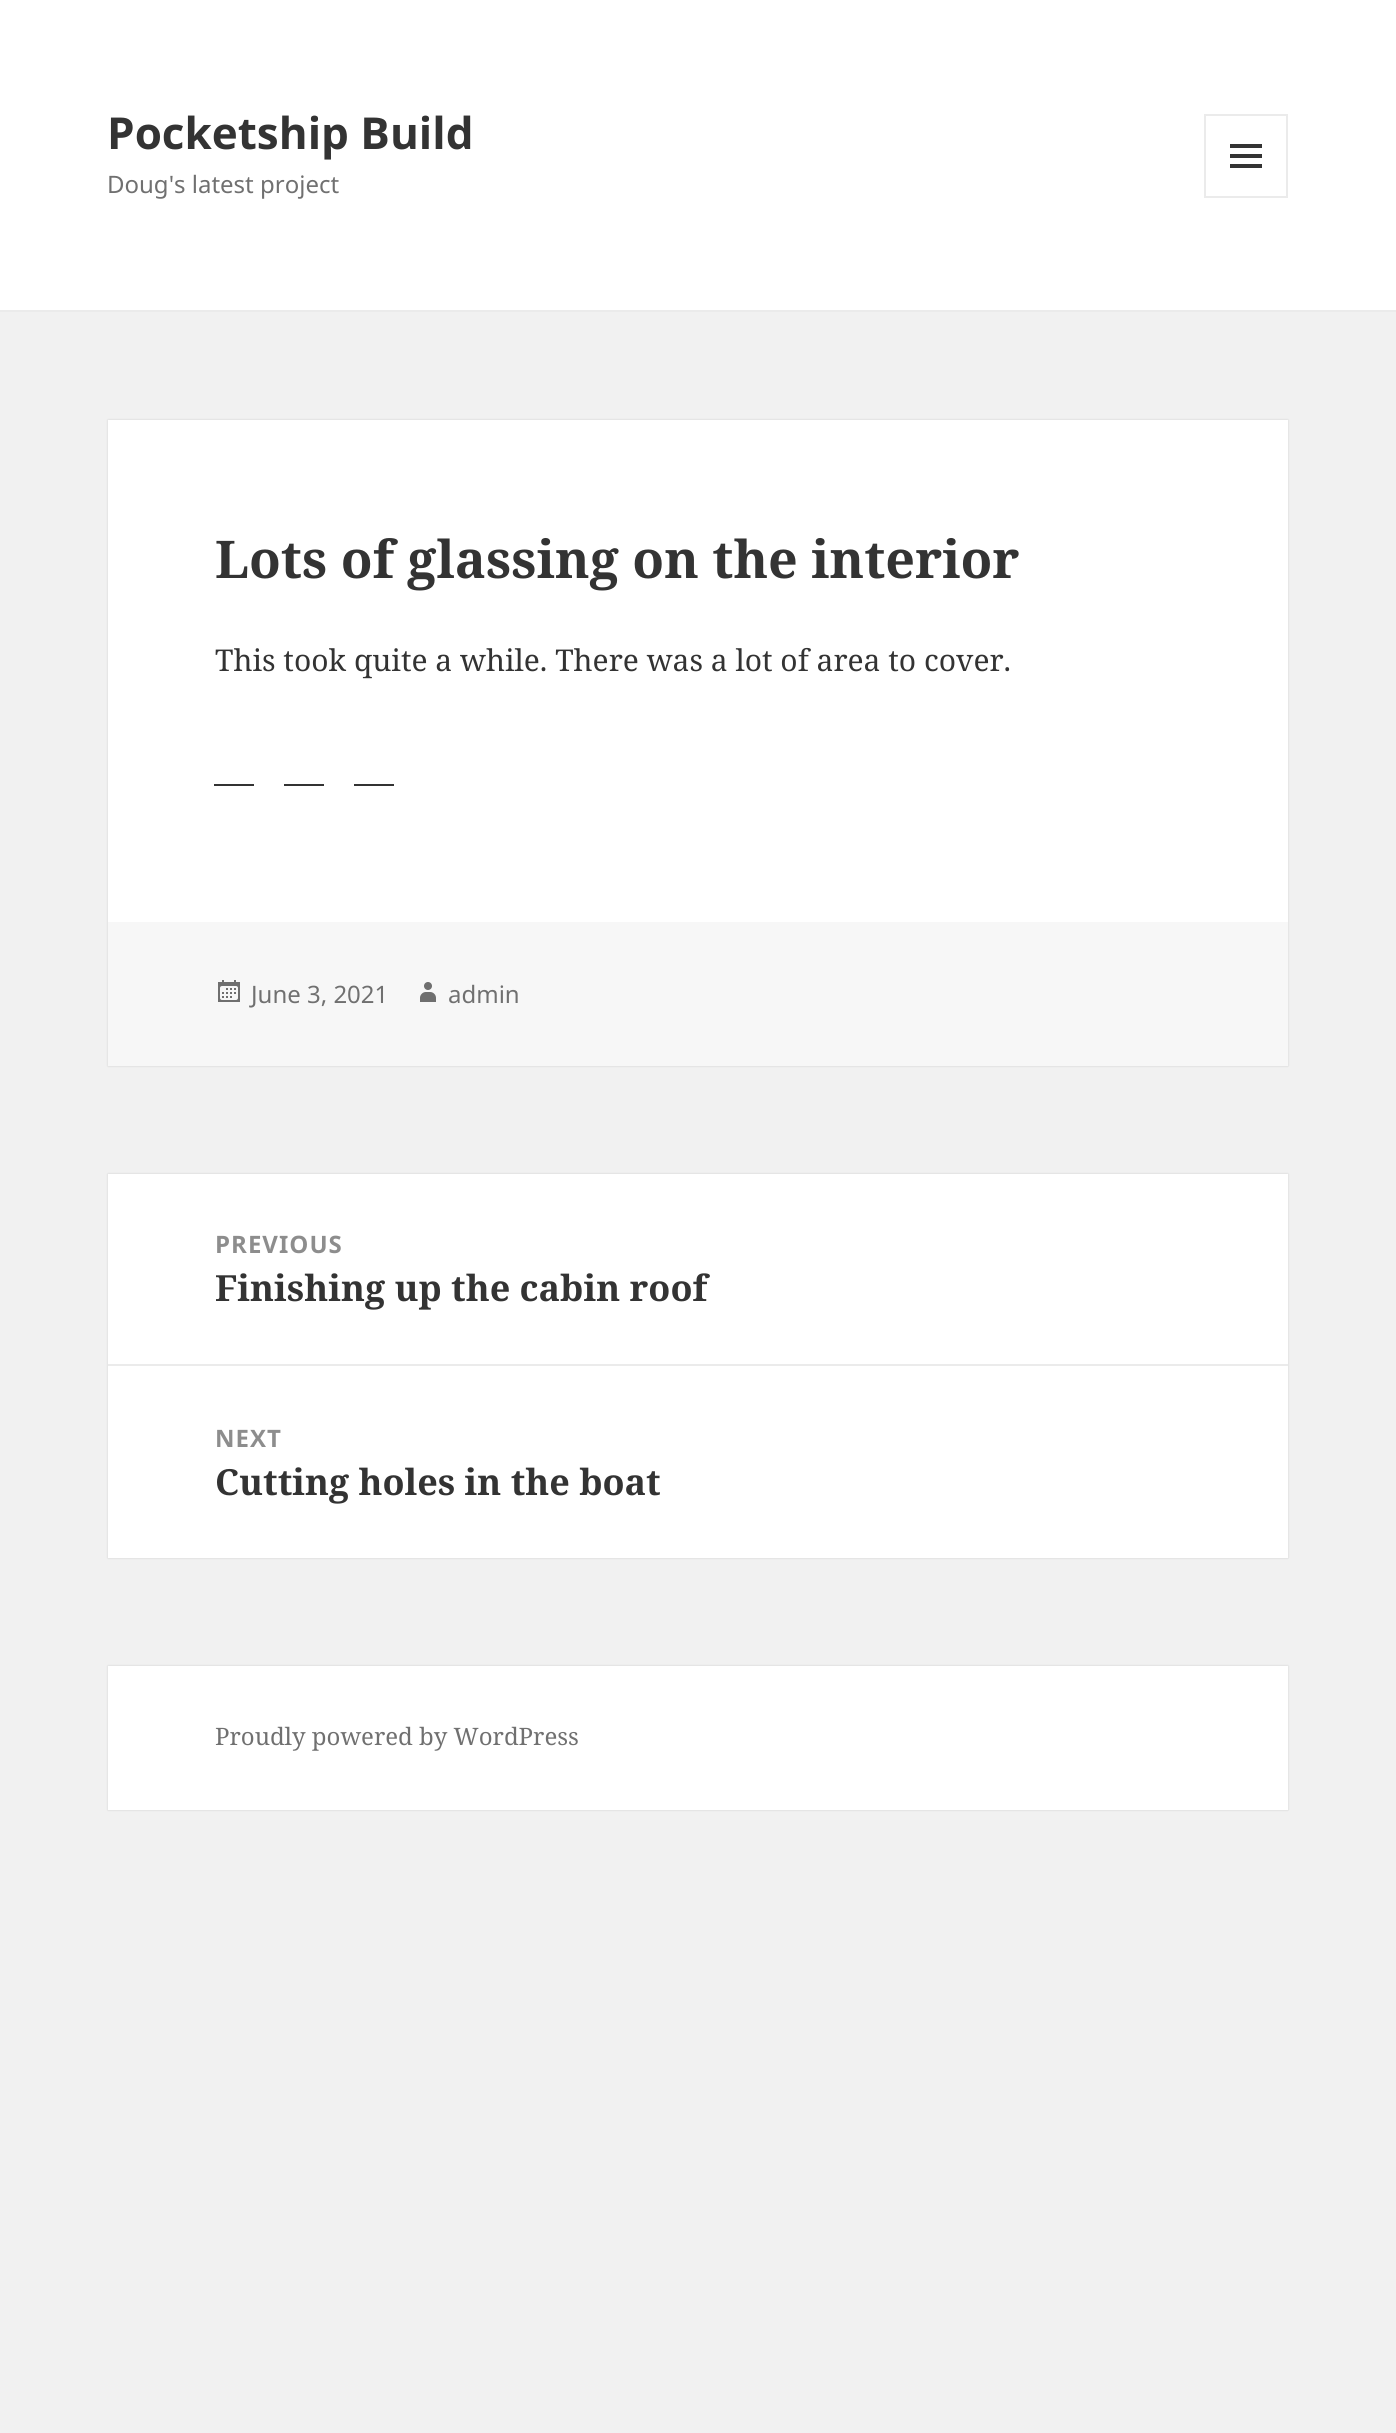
#include <cairo.h>
#include <math.h>
#include <stddef.h>


static void set_color(cairo_t *cr, unsigned color) {
    cairo_set_source_rgb(cr, (color >> 16) / 255.0, (color >> 8 & 255) / 255.0, (color & 255) / 255.0);
}

static void draw_text(cairo_t *cr, double x, double y, const char *s, const char *family, double size, int italic, int bold, unsigned color) {
    cairo_select_font_face(cr, family, italic ? CAIRO_FONT_SLANT_ITALIC : CAIRO_FONT_SLANT_NORMAL,
        bold ? CAIRO_FONT_WEIGHT_BOLD : CAIRO_FONT_WEIGHT_NORMAL);
    cairo_set_font_size(cr, size);
    set_color(cr, color);
    cairo_move_to(cr, x, y);
    cairo_show_text(cr, s);
}

static void draw_spaced(cairo_t *cr, double x, double y, const char *s, double letter, double word) {
    cairo_move_to(cr, x, y);
    while (*s) {
        char ch[5] = {0};
        int n = 0;
        do ch[n++] = *s++; while ((*s & 0xC0) == 0x80);
        cairo_show_text(cr, ch);
        cairo_rel_move_to(cr, letter + word * (*ch == ' '), 0);
    }
}

static void fill_rect(cairo_t *cr, double x, double y, double w, double h, unsigned color) {
    set_color(cr, color);
    cairo_rectangle(cr, x, y, w, h);
    cairo_fill(cr);
}

static void rounded_rect(cairo_t *cr, double x, double y, double w, double h, double r) {
    cairo_new_sub_path(cr);
    cairo_arc(cr, x + w - r, y + h - r, r, 0, M_PI / 2);
    cairo_arc(cr, x + r, y + h - r, r, M_PI / 2, M_PI);
    cairo_arc(cr, x + r, y + r, r, M_PI, 1.5 * M_PI);
    cairo_arc(cr, x + w - r, y + r, r, 1.5 * M_PI, 2 * M_PI);
    cairo_close_path(cr);
}

static void draw_shadow(cairo_t *cr, double x, double y, double w, double h, double r, double blur, double alpha) {
    cairo_push_group_with_content(cr, CAIRO_CONTENT_ALPHA);
    cairo_set_operator(cr, CAIRO_OPERATOR_SOURCE);
    for (int i = 15; i >= -15 && fmin(w, h) + blur * i / 3 > 0; i -= 2) {
        double e = blur * i / 6;
        cairo_set_source_rgba(cr, 0, 0, 0, alpha * erfc((i - 1) / 8.5) / 2);
        rounded_rect(cr, x - e, y - e, w + 2 * e, h + 2 * e, fmax(0, fmin(r + e + blur * .6, fmin(w, h) / 2 + e)));
        cairo_fill(cr);
    }
    cairo_pattern_t *soft = cairo_pop_group(cr);
    cairo_mask(cr, soft);
    cairo_pattern_destroy(soft);
}

static void draw_image(cairo_t *cr, const char *path, double x, double y, double w, double h) {
    cairo_surface_t *image = cairo_image_surface_create_from_png(path);
    cairo_save(cr);
    cairo_set_source_surface(cr, image, x, y);
    cairo_rectangle(cr, x, y, w, h);
    cairo_fill(cr);
    cairo_restore(cr);
    cairo_surface_destroy(image);
}

int main(void) {
    cairo_surface_t *surface = cairo_image_surface_create(CAIRO_FORMAT_RGB24, 1396, 2433);
    cairo_t *cr = cairo_create(surface);
    cairo_font_options_t *options = cairo_font_options_create();
    cairo_font_options_set_hint_metrics(options, CAIRO_HINT_METRICS_OFF);
    cairo_font_options_set_hint_style(options, CAIRO_HINT_STYLE_NONE);
    cairo_set_font_options(cr, options);
    cairo_set_miter_limit(cr, 4);
    set_color(cr, 0xF1F1F1);
    cairo_paint(cr);
    fill_rect(cr, 0, 0, 1396, 310, 0xFFFFFF);
    fill_rect(cr, 0, 310, 1396, 2, 0xEBEBEB);
    draw_text(cr, 107, 149, "Pocketship Build", "Noto Sans", 44, 0, 1, 0x333333);
    cairo_rectangle(cr, 1205, 115, 82, 82);
    set_color(cr, 0xEBEBEB);
    cairo_stroke(cr);
    draw_image(cr, "assets/img1.png", 1230, 144, 32, 24);
    draw_text(cr, 107, 193, "Doug's latest project", "Noto Sans", 24, 0, 0, 0x707070);
    set_color(cr, 0x000000);
    draw_shadow(cr, 108, 420, 1180, 646, 0, 1, 0.15);
    fill_rect(cr, 108, 420, 1180, 502, 0xFFFFFF);
    draw_text(cr, 215, 578, "Lots of glassing on the interior", "Noto Serif", 52, 0, 1, 0x333333);
    draw_text(cr, 215, 671, "This took quite a while. There was a lot of area to cover.", "Noto Serif", 30, 0, 0, 0x333333);
    fill_rect(cr, 214, 784, 40, 2, 0x333333);
    fill_rect(cr, 284, 784, 40, 2, 0x333333);
    fill_rect(cr, 354, 784, 40, 2, 0x333333);
    fill_rect(cr, 108, 922, 1180, 144, 0xF7F7F7);
    draw_image(cr, "assets/img2.png", 218, 980, 22, 22);
    draw_text(cr, 251, 1003, "June 3, 2021", "Noto Sans", 24, 0, 0, 0x707070);
    draw_image(cr, "assets/img3.png", 420, 982, 16, 20);
    draw_text(cr, 448, 1003, "admin", "Noto Sans", 24, 0, 0, 0x707070);
    set_color(cr, 0x000000);
    draw_shadow(cr, 108, 1174, 1180, 384, 0, 1, 0.15);
    fill_rect(cr, 108, 1174, 1180, 384, 0xFFFFFF);
    cairo_select_font_face(cr, "Noto Sans", CAIRO_FONT_SLANT_NORMAL, CAIRO_FONT_WEIGHT_BOLD);
    set_color(cr, 0x8D8D8D);
    draw_spaced(cr, 215, 1253, "PREVIOUS", 1, 0);
    draw_text(cr, 215, 1301, "Finishing up the cabin roof", "Noto Serif", 36, 0, 1, 0x333333);
    fill_rect(cr, 108, 1364, 1180, 2, 0xEBEBEB);
    cairo_select_font_face(cr, "Noto Sans", CAIRO_FONT_SLANT_NORMAL, CAIRO_FONT_WEIGHT_BOLD);
    cairo_set_font_size(cr, 24);
    set_color(cr, 0x8D8D8D);
    draw_spaced(cr, 215, 1447, "NEXT", 1, 0);
    draw_text(cr, 215, 1495, "Cutting holes in the boat", "Noto Serif", 36, 0, 1, 0x333333);
    set_color(cr, 0x000000);
    draw_shadow(cr, 108, 1666, 1180, 144, 0, 1, 0.15);
    fill_rect(cr, 108, 1666, 1180, 144, 0xFFFFFF);
    draw_text(cr, 215, 1745, "Proudly powered by WordPress", "Noto Serif", 24, 0, 0, 0x707070);
    cairo_surface_write_to_png(surface, "output.png");
    cairo_font_options_destroy(options);
    cairo_destroy(cr);
    cairo_surface_destroy(surface);
    return 0;
}
